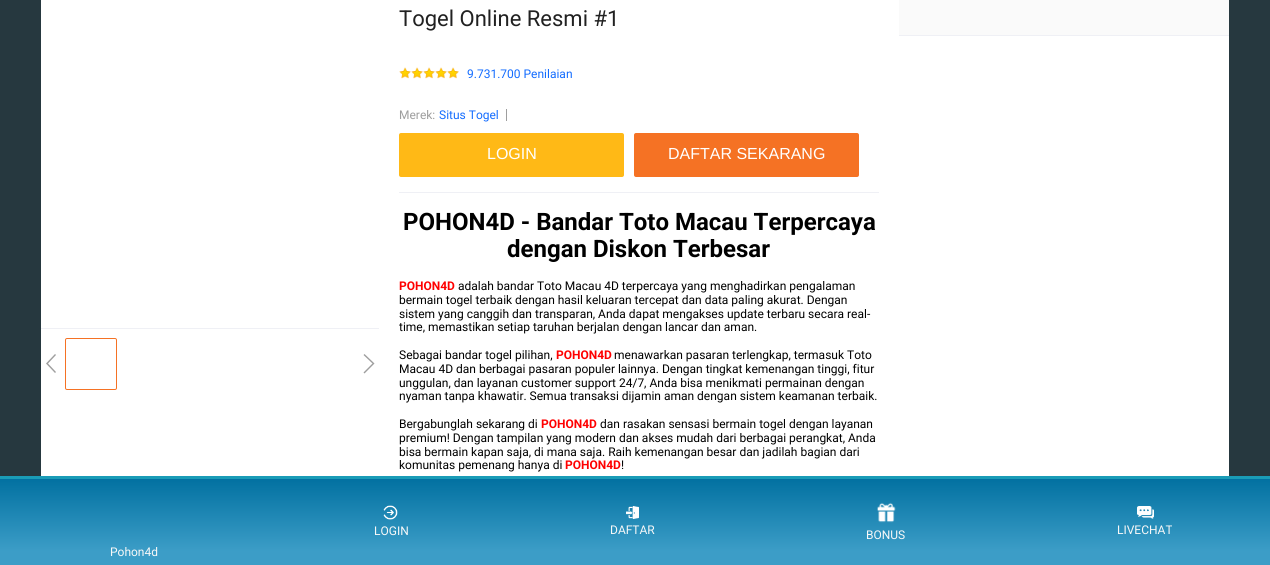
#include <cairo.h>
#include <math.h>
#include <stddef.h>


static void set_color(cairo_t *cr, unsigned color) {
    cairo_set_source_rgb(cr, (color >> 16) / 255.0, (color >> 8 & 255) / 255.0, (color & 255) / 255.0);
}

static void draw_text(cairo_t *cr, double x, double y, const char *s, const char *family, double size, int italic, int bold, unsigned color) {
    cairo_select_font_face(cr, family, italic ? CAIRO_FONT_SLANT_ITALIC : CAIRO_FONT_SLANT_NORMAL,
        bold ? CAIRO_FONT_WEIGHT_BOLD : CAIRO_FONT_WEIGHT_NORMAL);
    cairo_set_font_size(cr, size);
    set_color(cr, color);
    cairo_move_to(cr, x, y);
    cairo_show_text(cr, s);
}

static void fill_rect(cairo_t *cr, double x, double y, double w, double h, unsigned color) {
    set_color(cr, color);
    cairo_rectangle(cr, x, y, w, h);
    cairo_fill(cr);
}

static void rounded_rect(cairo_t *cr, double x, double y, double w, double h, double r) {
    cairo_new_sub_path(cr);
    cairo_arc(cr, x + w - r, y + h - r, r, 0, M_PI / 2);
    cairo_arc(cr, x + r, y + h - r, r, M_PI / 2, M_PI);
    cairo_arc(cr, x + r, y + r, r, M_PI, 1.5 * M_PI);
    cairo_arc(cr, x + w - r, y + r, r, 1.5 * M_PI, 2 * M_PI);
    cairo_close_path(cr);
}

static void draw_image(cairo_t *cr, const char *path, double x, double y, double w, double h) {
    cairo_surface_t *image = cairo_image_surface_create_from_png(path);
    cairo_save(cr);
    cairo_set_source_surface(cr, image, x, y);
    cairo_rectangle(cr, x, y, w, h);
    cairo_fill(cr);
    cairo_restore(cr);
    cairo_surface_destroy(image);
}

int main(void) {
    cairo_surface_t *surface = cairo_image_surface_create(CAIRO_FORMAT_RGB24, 1270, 565);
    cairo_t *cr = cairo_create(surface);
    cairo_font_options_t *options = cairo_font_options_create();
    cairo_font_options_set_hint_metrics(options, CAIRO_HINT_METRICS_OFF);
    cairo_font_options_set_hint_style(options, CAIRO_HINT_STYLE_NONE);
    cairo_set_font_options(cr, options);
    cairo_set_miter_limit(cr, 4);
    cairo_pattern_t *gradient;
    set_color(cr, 0x26383F);
    cairo_paint(cr);
    fill_rect(cr, 41, 0, 1188, 476, 0xFFFFFF);
    fill_rect(cr, 41, 328, 338, 1, 0xEFF0F5);
    set_color(cr, 0x9E9E9E);
    cairo_new_path(cr);
    cairo_move_to(cr, 56, 372);
    cairo_line_to(cr, 48, 363.5);
    cairo_line_to(cr, 56, 355);
    cairo_line_to(cr, 55, 354);
    cairo_line_to(cr, 46, 363.5);
    cairo_line_to(cr, 55, 373);
    cairo_close_path(cr);
    cairo_fill(cr);
    rounded_rect(cr, 65.5, 338.5, 51, 51, 1.5);
    set_color(cr, 0xF57224);
    cairo_set_line_width(cr, 1);
    cairo_stroke(cr);
    set_color(cr, 0x9E9E9E);
    cairo_new_path(cr);
    cairo_move_to(cr, 364.5, 373.5);
    cairo_line_to(cr, 363.5, 372.5);
    cairo_line_to(cr, 372.5, 363.5);
    cairo_line_to(cr, 363.5, 355);
    cairo_line_to(cr, 364.5, 354);
    cairo_line_to(cr, 374.5, 363.5);
    cairo_close_path(cr);
    cairo_fill(cr);
    draw_text(cr, 399, 26, "Togel Online Resmi #1", "Roboto", 22, 0, 0, 0x212121);
    draw_image(cr, "assets/img1.png", 399, 67, 12, 12);
    draw_image(cr, "assets/img1.png", 411, 67, 12, 12);
    draw_image(cr, "assets/img1.png", 423, 67, 12, 12);
    draw_image(cr, "assets/img1.png", 435, 67, 12, 12);
    draw_image(cr, "assets/img1.png", 447, 67, 12, 12);
    draw_text(cr, 467, 78, "9.731.700 Penilaian", "Roboto", 12, 0, 0, 0x136CFF);
    fill_rect(cr, 399, 192, 480, 1, 0xEFF0F5);
    draw_text(cr, 399, 119, "Merek:", "Roboto", 12, 0, 0, 0x9E9E9E);
    draw_text(cr, 439, 119, "Situs Togel", "Roboto", 12, 0, 0, 0x136CFF);
    fill_rect(cr, 506, 109, 1, 12, 0x9E9E9E);
    set_color(cr, 0xFFB916);
    rounded_rect(cr, 399, 133, 225, 44, 2);
    cairo_fill(cr);
    draw_text(cr, 487, 159, "LOGIN", "Liberation Sans", 16, 0, 0, 0xFFFFFF);
    set_color(cr, 0xF57224);
    rounded_rect(cr, 634, 133, 225, 44, 2);
    cairo_fill(cr);
    draw_text(cr, 668, 159, "DAFTAR SEKARANG", "Liberation Sans", 16, 0, 0, 0xFFFFFF);
    draw_text(cr, 403, 230, "POHON4D - Bandar Toto Macau Terpercaya", "Roboto", 24, 0, 1, 0x000000);
    draw_text(cr, 507, 257, "dengan Diskon Terbesar", "Roboto", 24, 0, 1, 0x000000);
    draw_text(cr, 399, 290, "POHON4D", "Roboto", 12, 0, 1, 0xFF0000);
    draw_text(cr, 458, 290, "adalah bandar Toto Macau 4D terpercaya yang menghadirkan pengalaman", "Roboto", 12, 0, 0, 0x000000);
    draw_text(cr, 399, 304, "bermain togel terbaik dengan hasil keluaran tercepat dan data paling akurat. Dengan", "Roboto", 12, 0, 0, 0x000000);
    draw_text(cr, 399, 318, "sistem yang canggih dan transparan, Anda dapat mengakses update terbaru secara real-", "Roboto", 12, 0, 0, 0x000000);
    draw_text(cr, 399, 331, "time, memastikan setiap taruhan berjalan dengan lancar dan aman.", "Roboto", 12, 0, 0, 0x000000);
    draw_text(cr, 399, 359, "Sebagai bandar togel pilihan,", "Roboto", 12, 0, 0, 0x000000);
    draw_text(cr, 556, 359, "POHON4D", "Roboto", 12, 0, 1, 0xFF0000);
    draw_text(cr, 614, 359, "menawarkan pasaran terlengkap, termasuk Toto", "Roboto", 12, 0, 0, 0x000000);
    draw_text(cr, 399, 373, "Macau 4D dan berbagai pasaran populer lainnya. Dengan tingkat kemenangan tinggi, fitur", "Roboto", 12, 0, 0, 0x000000);
    draw_text(cr, 399, 387, "unggulan, dan layanan customer support 24/7, Anda bisa menikmati permainan dengan", "Roboto", 12, 0, 0, 0x000000);
    draw_text(cr, 399, 400, "nyaman tanpa khawatir. Semua transaksi dijamin aman dengan sistem keamanan terbaik.", "Roboto", 12, 0, 0, 0x000000);
    draw_text(cr, 399, 428, "Bergabunglah sekarang di", "Roboto", 12, 0, 0, 0x000000);
    draw_text(cr, 541, 428, "POHON4D", "Roboto", 12, 0, 1, 0xFF0000);
    draw_text(cr, 600, 428, "dan rasakan sensasi bermain togel dengan layanan", "Roboto", 12, 0, 0, 0x000000);
    draw_text(cr, 399, 442, "premium! Dengan tampilan yang modern dan akses mudah dari berbagai perangkat, Anda", "Roboto", 12, 0, 0, 0x000000);
    draw_text(cr, 399, 456, "bisa bermain kapan saja, di mana saja. Raih kemenangan besar dan jadilah bagian dari", "Roboto", 12, 0, 0, 0x000000);
    draw_text(cr, 399, 469, "komunitas pemenang hanya di", "Roboto", 12, 0, 0, 0x000000);
    draw_text(cr, 565, 469, "POHON4D", "Roboto", 12, 0, 1, 0xFF0000);
    draw_text(cr, 621, 469, "!", "Roboto", 12, 0, 0, 0x000000);
    fill_rect(cr, 899, 0, 330, 35, 0xFAFAFA);
    fill_rect(cr, 899, 35, 330, 1, 0xEFF0F5);
    fill_rect(cr, 0, 476, 1270, 3, 0x1A9CB7);
    gradient = cairo_pattern_create_linear(635, 479, 635, 565);
    cairo_pattern_add_color_stop_rgba(gradient, 0, 0.008, 0.443, 0.631, 1);
    cairo_pattern_add_color_stop_rgba(gradient, 0.84, 0.235, 0.616, 0.78, 1);
    cairo_set_source(cr, gradient);
    cairo_pattern_destroy(gradient);
    cairo_rectangle(cr, 0, 479, 1270, 86);
    cairo_fill(cr);
    draw_image(cr, "assets/img2.png", 383, 505, 15, 15);
    draw_text(cr, 374, 535, "LOGIN", "Roboto", 12, 0, 0, 0xF8F8F8);
    draw_image(cr, "assets/img3.png", 626, 506, 13, 13);
    draw_text(cr, 610, 534, "DAFTAR", "Roboto", 12, 0, 0, 0xF8F8F8);
    draw_image(cr, "assets/img4.png", 877, 502, 19, 21);
    draw_text(cr, 866, 539, "BONUS", "Roboto", 12, 0, 0, 0xF8F8F8);
    draw_image(cr, "assets/img5.png", 1137, 506, 17, 13);
    draw_text(cr, 1117, 534, "LIVECHAT", "Roboto", 12, 0, 0, 0xF8F8F8);
    draw_text(cr, 110, 556, "Pohon4d", "Roboto", 12, 0, 0, 0xF8F8F8);
    cairo_surface_write_to_png(surface, "output.png");
    cairo_font_options_destroy(options);
    cairo_destroy(cr);
    cairo_surface_destroy(surface);
    return 0;
}
